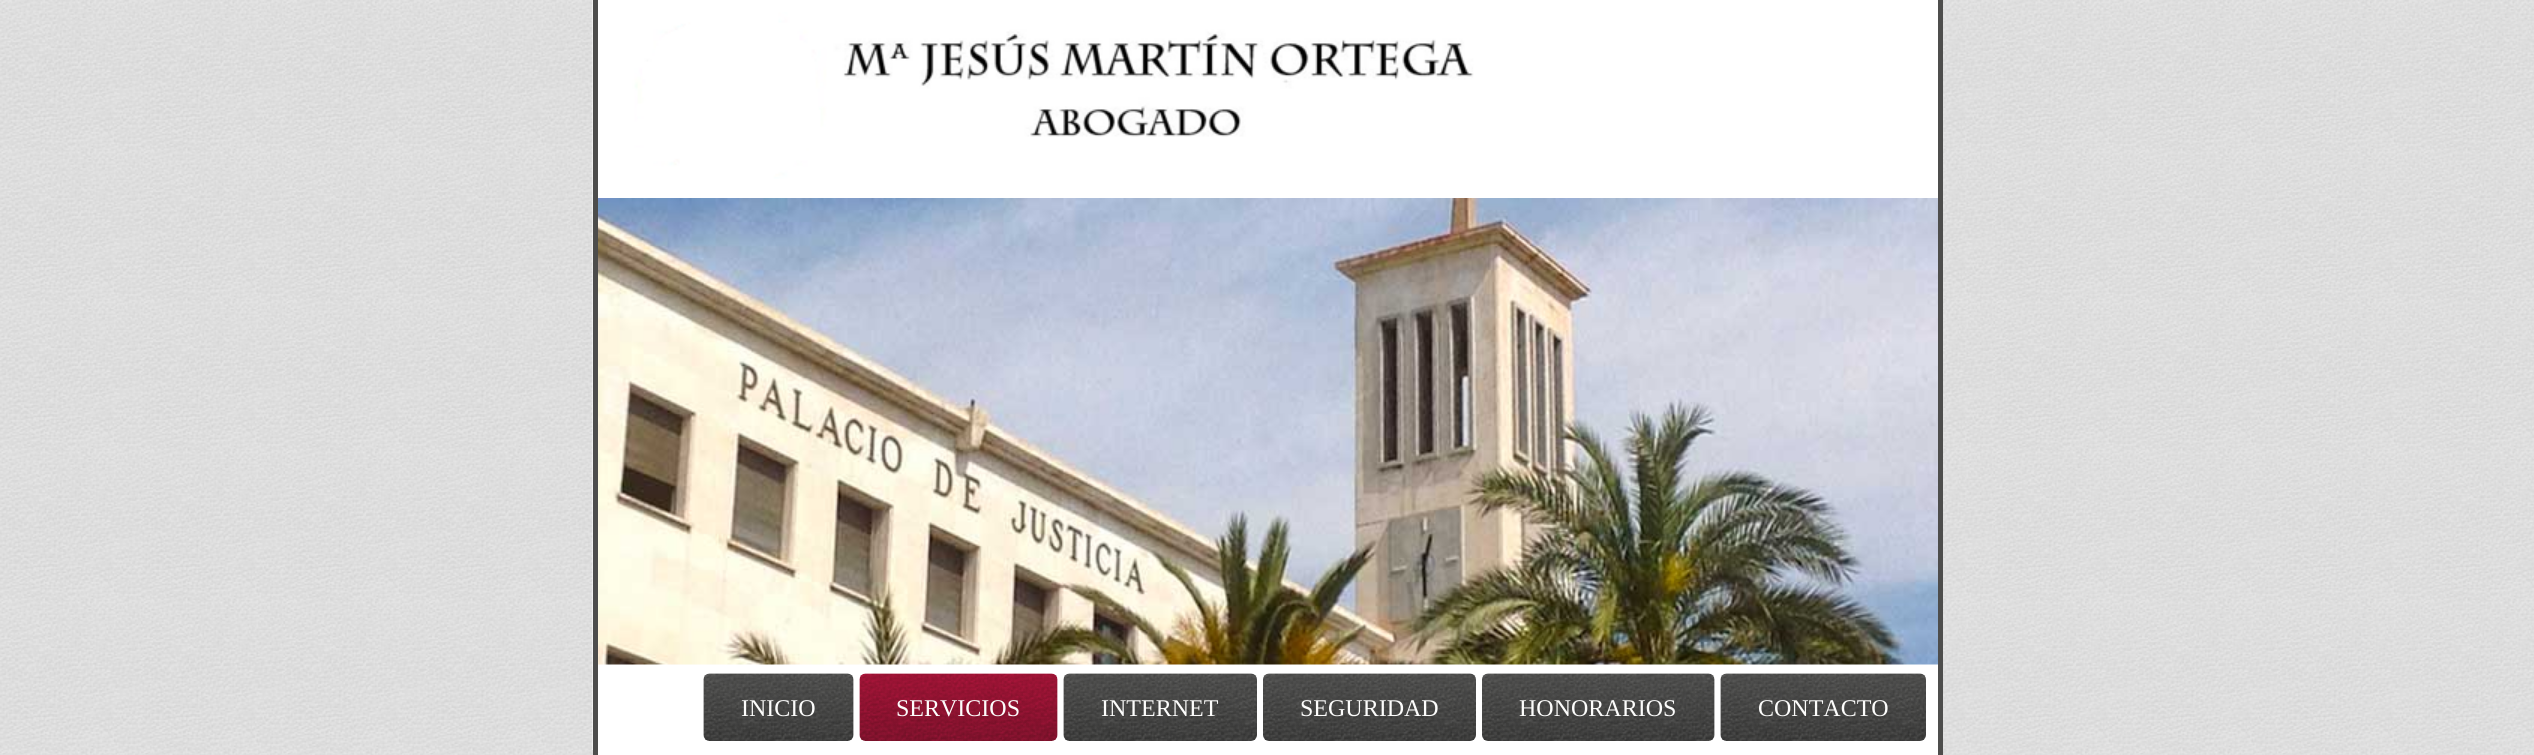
#include <cairo.h>
#include <math.h>
#include <stddef.h>


static void set_color(cairo_t *cr, unsigned color) {
    cairo_set_source_rgb(cr, (color >> 16) / 255.0, (color >> 8 & 255) / 255.0, (color & 255) / 255.0);
}

static void draw_text(cairo_t *cr, double x, double y, const char *s, const char *family, double size, int italic, int bold, unsigned color) {
    cairo_select_font_face(cr, family, italic ? CAIRO_FONT_SLANT_ITALIC : CAIRO_FONT_SLANT_NORMAL,
        bold ? CAIRO_FONT_WEIGHT_BOLD : CAIRO_FONT_WEIGHT_NORMAL);
    cairo_set_font_size(cr, size);
    set_color(cr, color);
    cairo_move_to(cr, x, y);
    cairo_show_text(cr, s);
}

static void fill_rect(cairo_t *cr, double x, double y, double w, double h, unsigned color) {
    set_color(cr, color);
    cairo_rectangle(cr, x, y, w, h);
    cairo_fill(cr);
}

static void draw_image(cairo_t *cr, const char *path, double x, double y, double w, double h) {
    cairo_surface_t *image = cairo_image_surface_create_from_png(path);
    cairo_save(cr);
    cairo_set_source_surface(cr, image, x, y);
    cairo_rectangle(cr, x, y, w, h);
    cairo_fill(cr);
    cairo_restore(cr);
    cairo_surface_destroy(image);
}

int main(void) {
    cairo_surface_t *surface = cairo_image_surface_create(CAIRO_FORMAT_RGB24, 2534, 755);
    cairo_t *cr = cairo_create(surface);
    cairo_font_options_t *options = cairo_font_options_create();
    cairo_font_options_set_hint_metrics(options, CAIRO_HINT_METRICS_OFF);
    cairo_font_options_set_hint_style(options, CAIRO_HINT_STYLE_NONE);
    cairo_set_font_options(cr, options);
    cairo_set_miter_limit(cr, 4);
    set_color(cr, 0xE8E8E8);
    cairo_paint(cr);
    draw_image(cr, "assets/img1.png", 0, 0, 2534, 755);
    draw_image(cr, "assets/img2.png", 592, 0, 1346, 750);
    fill_rect(cr, 1938, 0, 5, 750, 0x4D4D4C);
    fill_rect(cr, 593, 0, 5, 750, 0x4D4D4C);
    draw_image(cr, "assets/img3.png", 703, 673, 151, 68);
    draw_text(cr, 741, 716, "INICIO", "Liberation Serif", 24, 0, 0, 0xFDFDFC);
    draw_image(cr, "assets/img4.png", 859, 673, 199, 68);
    draw_text(cr, 896, 716, "SERVICIOS", "Liberation Serif", 24, 0, 0, 0xFDFDFC);
    draw_image(cr, "assets/img5.png", 1063, 673, 194, 68);
    draw_text(cr, 1101, 716, "INTERNET", "Liberation Serif", 24, 0, 0, 0xFDFDFC);
    draw_image(cr, "assets/img6.png", 1263, 673, 213, 68);
    draw_text(cr, 1300, 716, "SEGURIDAD", "Liberation Serif", 24, 0, 0, 0xFDFDFC);
    draw_image(cr, "assets/img7.png", 1482, 673, 233, 68);
    draw_text(cr, 1519, 716, "HONORARIOS", "Liberation Serif", 24, 0, 0, 0xFDFDFC);
    draw_image(cr, "assets/img8.png", 1720, 673, 206, 68);
    draw_text(cr, 1758, 716, "CONTACTO", "Liberation Serif", 24, 0, 0, 0xFDFDFC);
    fill_rect(cr, 593, 750, 1350, 5, 0xFFFFFF);
    fill_rect(cr, 1938, 750, 5, 5, 0x4E4E4D);
    fill_rect(cr, 593, 750, 5, 5, 0x4E4E4D);
    cairo_surface_write_to_png(surface, "output.png");
    cairo_font_options_destroy(options);
    cairo_destroy(cr);
    cairo_surface_destroy(surface);
    return 0;
}
